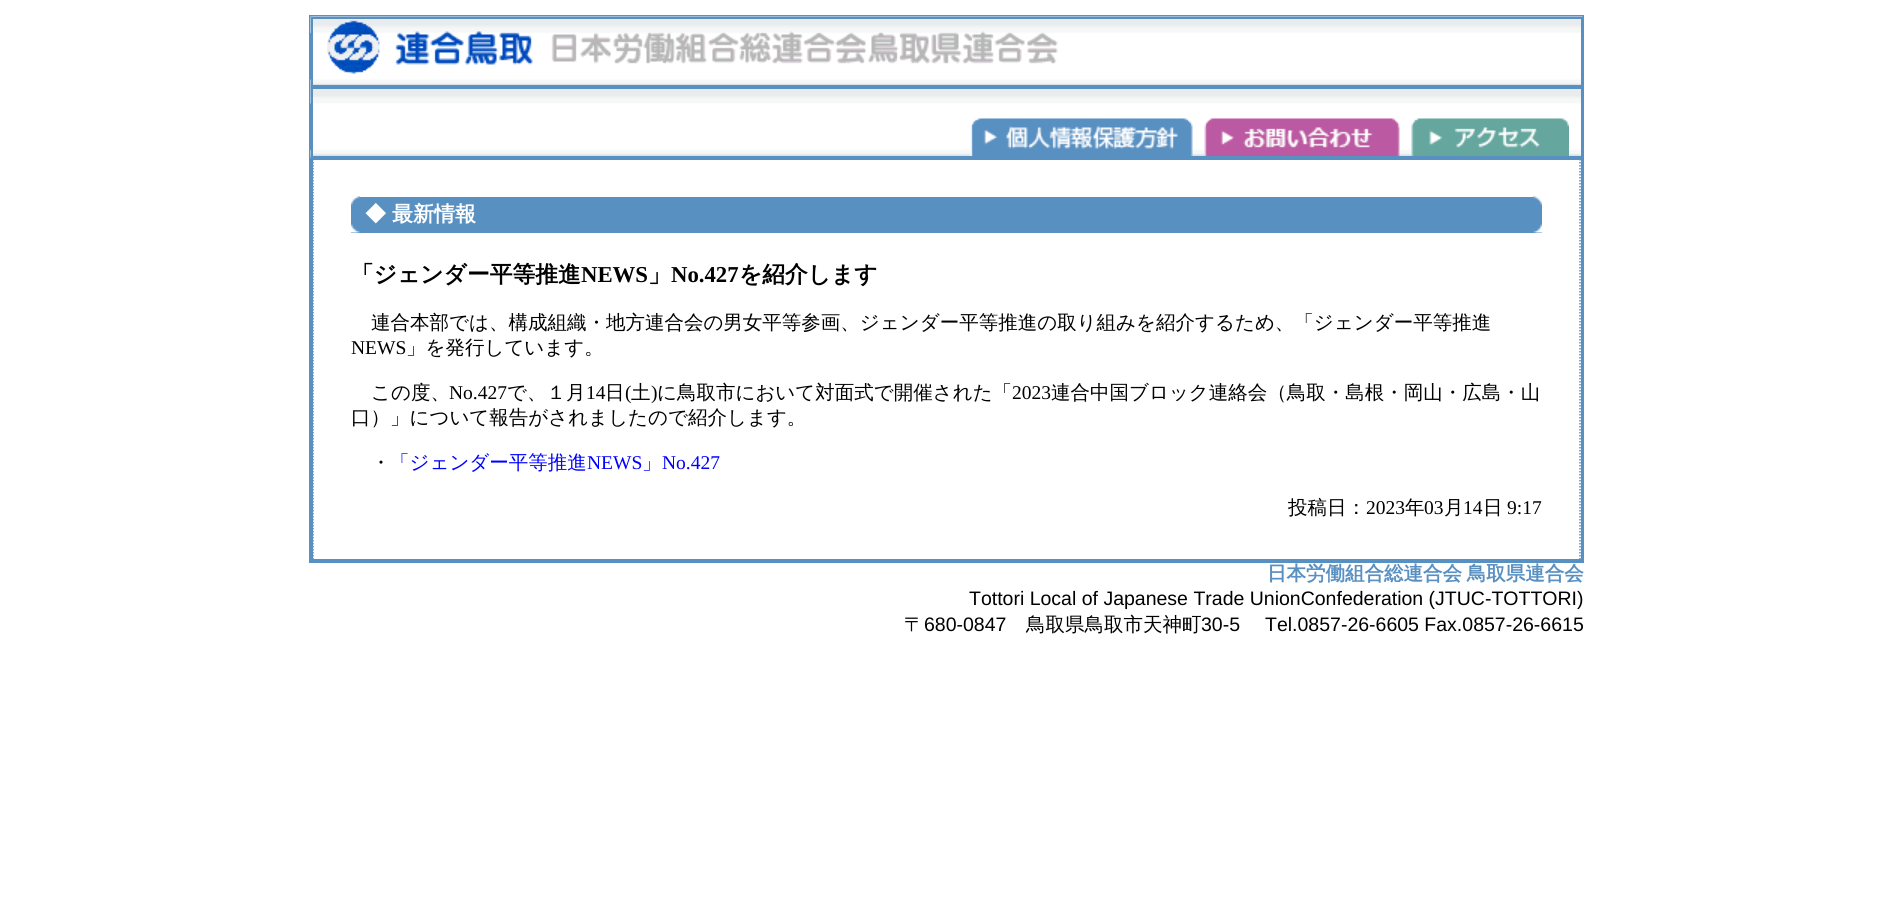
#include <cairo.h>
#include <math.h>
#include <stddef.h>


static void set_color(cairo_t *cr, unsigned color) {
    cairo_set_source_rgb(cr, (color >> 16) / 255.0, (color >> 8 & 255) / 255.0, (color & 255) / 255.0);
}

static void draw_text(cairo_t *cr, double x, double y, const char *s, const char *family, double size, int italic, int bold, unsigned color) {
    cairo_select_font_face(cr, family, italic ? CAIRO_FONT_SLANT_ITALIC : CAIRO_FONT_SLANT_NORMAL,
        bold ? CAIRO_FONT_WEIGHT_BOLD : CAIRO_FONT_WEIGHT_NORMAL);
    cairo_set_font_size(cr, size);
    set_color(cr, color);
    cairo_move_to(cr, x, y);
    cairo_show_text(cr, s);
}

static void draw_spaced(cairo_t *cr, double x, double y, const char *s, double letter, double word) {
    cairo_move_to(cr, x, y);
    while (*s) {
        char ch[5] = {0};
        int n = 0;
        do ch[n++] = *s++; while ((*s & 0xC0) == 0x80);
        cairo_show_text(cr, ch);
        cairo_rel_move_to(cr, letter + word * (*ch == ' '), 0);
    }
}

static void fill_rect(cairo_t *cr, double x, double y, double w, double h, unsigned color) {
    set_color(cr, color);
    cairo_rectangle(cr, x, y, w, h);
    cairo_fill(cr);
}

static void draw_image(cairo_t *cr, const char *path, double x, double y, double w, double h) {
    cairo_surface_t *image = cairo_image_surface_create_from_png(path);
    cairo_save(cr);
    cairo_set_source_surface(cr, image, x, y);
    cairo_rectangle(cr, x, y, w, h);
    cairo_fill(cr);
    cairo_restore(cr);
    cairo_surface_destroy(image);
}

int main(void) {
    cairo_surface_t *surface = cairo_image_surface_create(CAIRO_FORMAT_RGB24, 1893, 914);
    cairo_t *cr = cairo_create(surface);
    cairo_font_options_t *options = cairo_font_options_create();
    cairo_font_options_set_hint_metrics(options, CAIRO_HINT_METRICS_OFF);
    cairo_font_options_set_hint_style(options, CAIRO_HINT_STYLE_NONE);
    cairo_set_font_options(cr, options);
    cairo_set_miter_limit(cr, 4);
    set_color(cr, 0xFFFFFF);
    cairo_paint(cr);
    cairo_rectangle(cr, 310, 16, 1273, 546);
    set_color(cr, 0x5990C2);
    cairo_stroke(cr);
    draw_image(cr, "assets/img1.png", 310, 16, 1273, 71);
    cairo_rectangle(cr, 312, 18, 1270, 68);
    cairo_stroke(cr);
    draw_image(cr, "assets/img2.png", 327, 20, 731, 54);
    draw_image(cr, "assets/img3.png", 310, 87, 1271, 71);
    cairo_rectangle(cr, 312, 88, 1270, 69);
    cairo_stroke(cr);
    draw_image(cr, "assets/img4.png", 970, 118, 223, 38);
    draw_image(cr, "assets/img5.png", 1204, 118, 196, 38);
    draw_image(cr, "assets/img6.png", 1411, 118, 158, 38);
    cairo_rectangle(cr, 312, 159, 1270, 401);
    cairo_stroke(cr);
    cairo_new_path(cr);
    cairo_move_to(cr, 1580, 159);
    cairo_line_to(cr, 1580, 559.5);
    cairo_set_line_width(cr, 1.5);
    cairo_set_dash(cr, (double[]){1.5, 1.5}, 2, 0);
    cairo_stroke(cr);
    cairo_new_path(cr);
    cairo_move_to(cr, 313, 159);
    cairo_line_to(cr, 313, 559.5);
    cairo_stroke(cr);
    fill_rect(cr, 351, 197, 1191, 36, 0x5990C2);
    draw_image(cr, "assets/img7.png", 351, 196, 9, 37);
    draw_text(cr, 365, 221, "◆", "WenQuanYi Zen Hei", 21, 0, 1, 0xFFFFFF);
    draw_text(cr, 392, 221, "最新情報", "WenQuanYi Zen Hei", 21, 0, 1, 0xFFFFFF);
    draw_image(cr, "assets/img8.png", 1533, 196, 9, 37);
    draw_text(cr, 351, 282, "「ジェンダー平等推進", "WenQuanYi Zen Hei", 22.75, 0, 1, 0x000000);
    draw_text(cr, 581, 282, "NEWS", "Liberation Serif", 22.75, 0, 1, 0x000000);
    draw_text(cr, 648, 282, "」", "WenQuanYi Zen Hei", 22.75, 0, 1, 0x000000);
    draw_text(cr, 671, 282, "No.427", "Liberation Serif", 22.75, 0, 1, 0x000000);
    draw_text(cr, 739, 282, "を紹介します", "WenQuanYi Zen Hei", 22.75, 0, 1, 0x000000);
    draw_text(cr, 371, 329, "連合本部では、構成組織・地方連合会の男女平等参画、ジェンダー平等推進の取り組みを紹介するため、「ジェンダー平等推進", "WenQuanYi Zen Hei Medium", 19.5, 0, 0, 0x000000);
    draw_text(cr, 351, 354, "NEWS", "Liberation Serif", 19.5, 0, 0, 0x000000);
    draw_text(cr, 406, 354, "」を発行しています。", "WenQuanYi Zen Hei Medium", 19.5, 0, 0, 0x000000);
    draw_text(cr, 371, 399, "この度、", "WenQuanYi Zen Hei Medium", 19.5, 0, 0, 0x000000);
    draw_text(cr, 449, 399, "No.427", "Liberation Serif", 19.5, 0, 0, 0x000000);
    draw_text(cr, 507, 399, "で、１月", "WenQuanYi Zen Hei Medium", 19.5, 0, 0, 0x000000);
    draw_text(cr, 586, 399, "14", "Liberation Serif", 19.5, 0, 0, 0x000000);
    draw_text(cr, 605, 399, "日", "WenQuanYi Zen Hei Medium", 19.5, 0, 0, 0x000000);
    draw_text(cr, 625, 399, "(", "Liberation Serif", 19.5, 0, 0, 0x000000);
    draw_text(cr, 631, 399, "土", "WenQuanYi Zen Hei Medium", 19.5, 0, 0, 0x000000);
    draw_text(cr, 651, 399, ")", "Liberation Serif", 19.5, 0, 0, 0x000000);
    draw_text(cr, 657, 399, "に鳥取市において対面式で開催された「", "WenQuanYi Zen Hei Medium", 19.5, 0, 0, 0x000000);
    draw_text(cr, 1012, 399, "2023", "Liberation Serif", 19.5, 0, 0, 0x000000);
    draw_text(cr, 1051, 399, "連合中国ブロック連絡会（鳥取・島根・岡山・広島・山", "WenQuanYi Zen Hei Medium", 19.5, 0, 0, 0x000000);
    draw_text(cr, 351, 424, "口）」について報告がされましたので紹介します。", "WenQuanYi Zen Hei Medium", 19.5, 0, 0, 0x000000);
    draw_text(cr, 371, 469, "・", "WenQuanYi Zen Hei Medium", 19.5, 0, 0, 0x000000);
    draw_text(cr, 390, 469, "「ジェンダー平等推進", "WenQuanYi Zen Hei Medium", 19.5, 0, 0, 0x0000FF);
    draw_text(cr, 587, 469, "NEWS", "Liberation Serif", 19.5, 0, 0, 0x0000FF);
    draw_text(cr, 642, 469, "」", "WenQuanYi Zen Hei Medium", 19.5, 0, 0, 0x0000FF);
    draw_text(cr, 662, 469, "No.427", "Liberation Serif", 19.5, 0, 0, 0x0000FF);
    draw_text(cr, 1288, 514, "投稿日：", "WenQuanYi Zen Hei Medium", 19.5, 0, 0, 0x000000);
    draw_text(cr, 1366, 514, "2023", "Liberation Serif", 19.5, 0, 0, 0x000000);
    draw_text(cr, 1405, 514, "年", "WenQuanYi Zen Hei Medium", 19.5, 0, 0, 0x000000);
    draw_text(cr, 1424, 514, "03", "Liberation Serif", 19.5, 0, 0, 0x000000);
    draw_text(cr, 1444, 514, "月", "WenQuanYi Zen Hei Medium", 19.5, 0, 0, 0x000000);
    draw_text(cr, 1463, 514, "14", "Liberation Serif", 19.5, 0, 0, 0x000000);
    draw_text(cr, 1483, 514, "日", "WenQuanYi Zen Hei Medium", 19.5, 0, 0, 0x000000);
    draw_text(cr, 1507, 514, "9:17", "Liberation Serif", 19.5, 0, 0, 0x000000);
    cairo_select_font_face(cr, "WenQuanYi Zen Hei", CAIRO_FONT_SLANT_NORMAL, CAIRO_FONT_WEIGHT_BOLD);
    set_color(cr, 0x5990C2);
    draw_spaced(cr, 1267, 580, "日本労働組合総連合会 鳥取県連合会", 0, -1);
    draw_text(cr, 969, 605, "Tottori Local of Japanese Trade UnionConfederation (JTUC-TOTTORI)", "Liberation Sans", 19.5, 0, 0, 0x000000);
    draw_text(cr, 904, 631, "〒", "WenQuanYi Zen Hei Medium", 19.5, 0, 0, 0x000000);
    draw_text(cr, 924, 631, "680-0847", "Liberation Sans", 19.5, 0, 0, 0x000000);
    draw_text(cr, 1026, 631, "鳥取県鳥取市天神町", "WenQuanYi Zen Hei Medium", 19.5, 0, 0, 0x000000);
    draw_text(cr, 1201, 631, "30-5", "Liberation Sans", 19.5, 0, 0, 0x000000);
    draw_text(cr, 1265, 631, "Tel.0857-26-6605 Fax.0857-26-6615", "Liberation Sans", 19.5, 0, 0, 0x000000);
    cairo_surface_write_to_png(surface, "output.png");
    cairo_font_options_destroy(options);
    cairo_destroy(cr);
    cairo_surface_destroy(surface);
    return 0;
}
